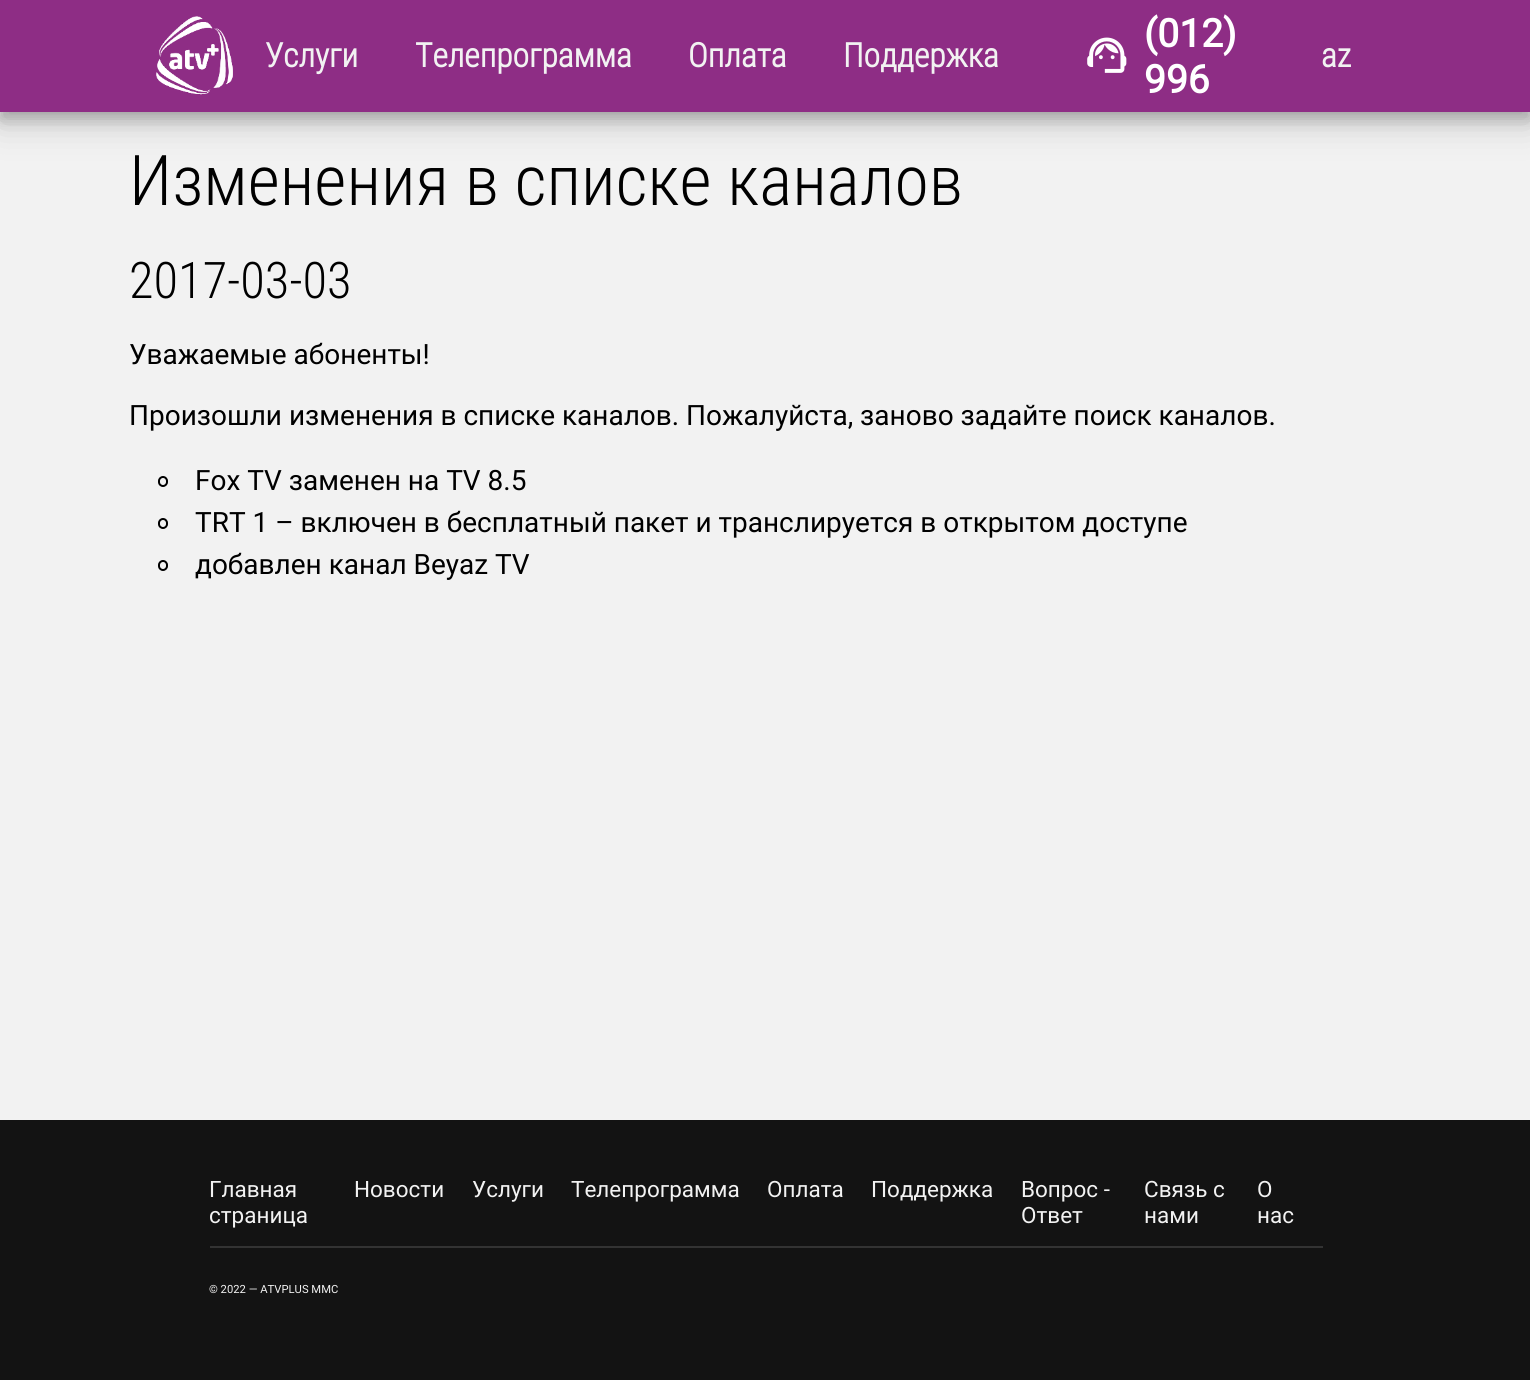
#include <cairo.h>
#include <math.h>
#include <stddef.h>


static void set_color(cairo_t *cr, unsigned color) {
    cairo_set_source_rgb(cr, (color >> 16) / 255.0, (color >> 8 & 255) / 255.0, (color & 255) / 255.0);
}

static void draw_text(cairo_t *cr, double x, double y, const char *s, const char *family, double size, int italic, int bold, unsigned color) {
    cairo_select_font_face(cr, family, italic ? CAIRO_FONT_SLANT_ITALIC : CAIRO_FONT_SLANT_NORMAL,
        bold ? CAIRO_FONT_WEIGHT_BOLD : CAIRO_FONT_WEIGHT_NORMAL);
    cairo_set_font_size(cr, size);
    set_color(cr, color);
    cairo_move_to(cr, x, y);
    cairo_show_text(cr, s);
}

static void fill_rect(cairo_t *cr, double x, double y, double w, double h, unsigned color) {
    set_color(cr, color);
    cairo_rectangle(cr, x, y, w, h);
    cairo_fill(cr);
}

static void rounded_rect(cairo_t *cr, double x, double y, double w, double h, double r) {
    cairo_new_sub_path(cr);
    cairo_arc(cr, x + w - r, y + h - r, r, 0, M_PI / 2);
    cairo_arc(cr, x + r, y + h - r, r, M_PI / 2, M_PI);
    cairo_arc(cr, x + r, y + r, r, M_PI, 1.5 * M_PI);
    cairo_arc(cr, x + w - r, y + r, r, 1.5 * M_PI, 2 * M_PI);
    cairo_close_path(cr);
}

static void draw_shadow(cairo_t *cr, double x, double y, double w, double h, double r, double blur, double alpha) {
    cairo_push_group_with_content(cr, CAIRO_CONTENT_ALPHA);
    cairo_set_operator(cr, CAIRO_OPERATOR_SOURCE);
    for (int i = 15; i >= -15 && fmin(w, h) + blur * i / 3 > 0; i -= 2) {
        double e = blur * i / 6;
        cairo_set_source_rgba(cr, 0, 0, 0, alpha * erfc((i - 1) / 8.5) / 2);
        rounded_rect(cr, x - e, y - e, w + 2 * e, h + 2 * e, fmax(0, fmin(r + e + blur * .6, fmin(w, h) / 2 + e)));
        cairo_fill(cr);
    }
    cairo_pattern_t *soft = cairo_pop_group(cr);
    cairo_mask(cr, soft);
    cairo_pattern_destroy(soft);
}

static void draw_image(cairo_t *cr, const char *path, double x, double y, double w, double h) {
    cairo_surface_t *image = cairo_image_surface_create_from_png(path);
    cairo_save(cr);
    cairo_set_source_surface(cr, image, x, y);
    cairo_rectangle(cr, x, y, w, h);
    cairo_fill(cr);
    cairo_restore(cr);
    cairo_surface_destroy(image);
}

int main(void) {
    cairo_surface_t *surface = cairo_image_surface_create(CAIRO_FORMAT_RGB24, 1530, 1380);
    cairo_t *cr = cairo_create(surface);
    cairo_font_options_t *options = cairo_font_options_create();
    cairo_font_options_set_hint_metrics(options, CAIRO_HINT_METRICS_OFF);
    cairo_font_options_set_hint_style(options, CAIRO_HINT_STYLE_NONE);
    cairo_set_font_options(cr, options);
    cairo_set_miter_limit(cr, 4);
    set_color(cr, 0xF2F2F2);
    cairo_paint(cr);
    set_color(cr, 0x000000);
    draw_shadow(cr, 0, 11, 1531, 112, 0, 17.5, 0.19);
    draw_shadow(cr, 0, 7, 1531, 112, 0, 7, 0.2);
    fill_rect(cr, 0, 0, 1530, 112, 0x8E2D85);
    draw_image(cr, "assets/img1.png", 156, 16, 77, 79);
    draw_text(cr, 265, 67, "Услуги", "Roboto Condensed", 33.5, 0, 1, 0xF2F2F2);
    draw_text(cr, 415, 67, "Телепрограмма", "Roboto Condensed", 33.5, 0, 1, 0xF2F2F2);
    draw_text(cr, 688, 67, "Оплата", "Roboto Condensed", 33.5, 0, 1, 0xF2F2F2);
    draw_text(cr, 843, 67, "Поддержка", "Roboto Condensed", 33.5, 0, 1, 0xF2F2F2);
    draw_image(cr, "assets/img2.png", 1087, 37, 40, 36);
    draw_text(cr, 1144, 47, "(012)", "Roboto", 39, 0, 1, 0xFFFFFF);
    draw_text(cr, 1144, 93, "996", "Roboto", 39, 0, 1, 0xFFFFFF);
    draw_text(cr, 1321, 67, "az", "Roboto Condensed", 33.5, 0, 1, 0xF2F2F2);
    draw_text(cr, 129, 205, "Изменения в списке каналов", "Roboto Condensed Light", 70, 0, 0, 0x000000);
    draw_text(cr, 129, 298, "2017-03-03", "Roboto Condensed Light", 50.5, 0, 0, 0x000000);
    draw_text(cr, 129, 364, "Уважаемые абоненты!", "Roboto", 28, 0, 0, 0x000000);
    draw_text(cr, 129, 425, "Произошли изменения в списке каналов. Пожалуйста, заново задайте поиск каналов.", "Roboto", 28, 0, 0, 0x000000);
    rounded_rect(cr, 159, 477, 8, 9, 4);
    cairo_stroke(cr);
    draw_text(cr, 195, 490, "Fox TV заменен на TV 8.5", "Roboto", 28, 0, 0, 0x000000);
    rounded_rect(cr, 159, 519, 8, 9, 4);
    cairo_stroke(cr);
    draw_text(cr, 195, 532, "TRT 1 – включен в бесплатный пакет и транслируется в открытом доступе", "Roboto", 28, 0, 0, 0x000000);
    rounded_rect(cr, 159, 561, 8, 9, 4);
    cairo_stroke(cr);
    draw_text(cr, 195, 574, "добавлен канал Beyaz TV", "Roboto", 28, 0, 0, 0x000000);
    fill_rect(cr, 0, 1120, 1530, 260, 0x131313);
    draw_text(cr, 209, 1197, "Главная", "Roboto", 22.5, 0, 0, 0xF2F2F2);
    draw_text(cr, 209, 1223, "страница", "Roboto", 22.5, 0, 0, 0xF2F2F2);
    draw_text(cr, 354, 1197, "Новости", "Roboto", 22.5, 0, 0, 0xF2F2F2);
    draw_text(cr, 472, 1197, "Услуги", "Roboto", 22.5, 0, 0, 0xF2F2F2);
    draw_text(cr, 571, 1197, "Телепрограмма", "Roboto", 22.5, 0, 0, 0xF2F2F2);
    draw_text(cr, 767, 1197, "Оплата", "Roboto", 22.5, 0, 0, 0xF2F2F2);
    draw_text(cr, 871, 1197, "Поддержка", "Roboto", 22.5, 0, 0, 0xF2F2F2);
    draw_text(cr, 1021, 1197, "Вопрос -", "Roboto", 22.5, 0, 0, 0xF2F2F2);
    draw_text(cr, 1021, 1223, "Ответ", "Roboto", 22.5, 0, 0, 0xF2F2F2);
    draw_text(cr, 1144, 1197, "Связь с", "Roboto", 22.5, 0, 0, 0xF2F2F2);
    draw_text(cr, 1144, 1223, "нами", "Roboto", 22.5, 0, 0, 0xF2F2F2);
    draw_text(cr, 1257, 1197, "О", "Roboto", 22.5, 0, 0, 0xF2F2F2);
    draw_text(cr, 1257, 1223, "нас", "Roboto", 22.5, 0, 0, 0xF2F2F2);
    fill_rect(cr, 210, 1246, 1113, 2, 0x333333);
    draw_text(cr, 209, 1293, "© 2022 — ATVPLUS MMC", "Roboto", 11.25, 0, 0, 0xF2F2F2);
    cairo_surface_write_to_png(surface, "output.png");
    cairo_font_options_destroy(options);
    cairo_destroy(cr);
    cairo_surface_destroy(surface);
    return 0;
}
